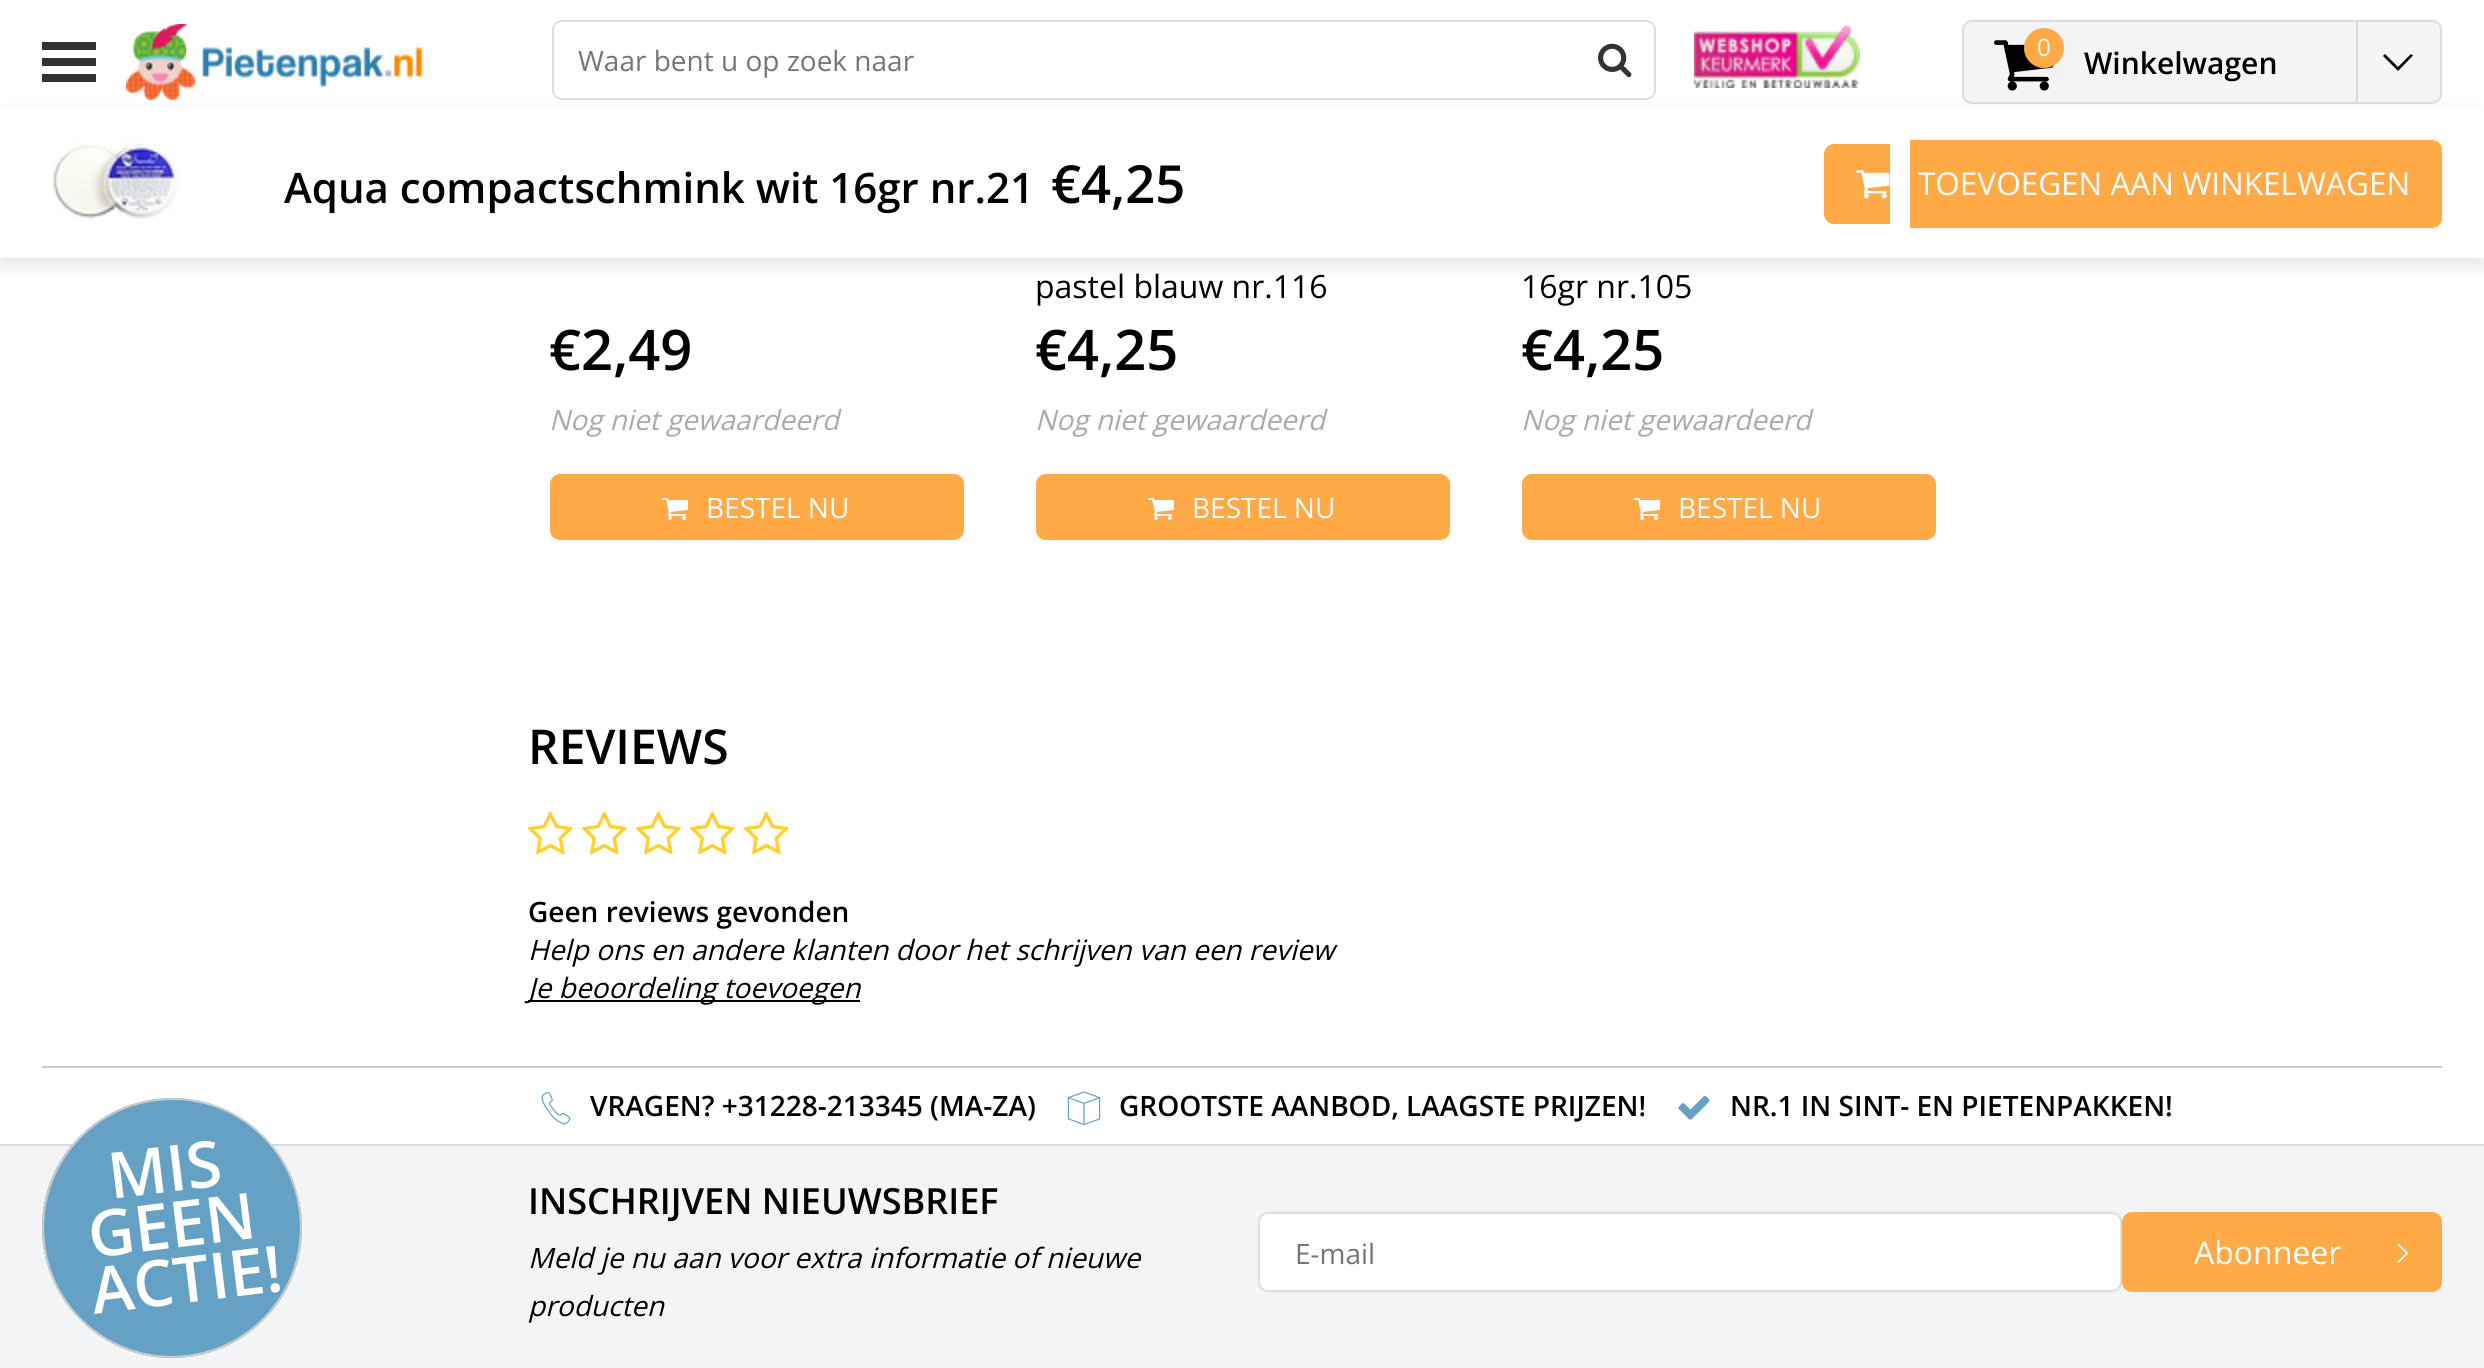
#include <cairo.h>
#include <math.h>
#include <stddef.h>


static void set_color(cairo_t *cr, unsigned color) {
    cairo_set_source_rgb(cr, (color >> 16) / 255.0, (color >> 8 & 255) / 255.0, (color & 255) / 255.0);
}

static void draw_text(cairo_t *cr, double x, double y, const char *s, const char *family, double size, int italic, int bold, unsigned color) {
    cairo_select_font_face(cr, family, italic ? CAIRO_FONT_SLANT_ITALIC : CAIRO_FONT_SLANT_NORMAL,
        bold ? CAIRO_FONT_WEIGHT_BOLD : CAIRO_FONT_WEIGHT_NORMAL);
    cairo_set_font_size(cr, size);
    set_color(cr, color);
    cairo_move_to(cr, x, y);
    cairo_show_text(cr, s);
}

static void fill_rect(cairo_t *cr, double x, double y, double w, double h, unsigned color) {
    set_color(cr, color);
    cairo_rectangle(cr, x, y, w, h);
    cairo_fill(cr);
}

static void rounded_rect(cairo_t *cr, double x, double y, double w, double h, double r) {
    cairo_new_sub_path(cr);
    cairo_arc(cr, x + w - r, y + h - r, r, 0, M_PI / 2);
    cairo_arc(cr, x + r, y + h - r, r, M_PI / 2, M_PI);
    cairo_arc(cr, x + r, y + r, r, M_PI, 1.5 * M_PI);
    cairo_arc(cr, x + w - r, y + r, r, 1.5 * M_PI, 2 * M_PI);
    cairo_close_path(cr);
}

static void draw_shadow(cairo_t *cr, double x, double y, double w, double h, double r, double blur, double alpha) {
    cairo_push_group_with_content(cr, CAIRO_CONTENT_ALPHA);
    cairo_set_operator(cr, CAIRO_OPERATOR_SOURCE);
    for (int i = 15; i >= -15 && fmin(w, h) + blur * i / 3 > 0; i -= 2) {
        double e = blur * i / 6;
        cairo_set_source_rgba(cr, 0, 0, 0, alpha * erfc((i - 1) / 8.5) / 2);
        rounded_rect(cr, x - e, y - e, w + 2 * e, h + 2 * e, fmax(0, fmin(r + e + blur * .6, fmin(w, h) / 2 + e)));
        cairo_fill(cr);
    }
    cairo_pattern_t *soft = cairo_pop_group(cr);
    cairo_mask(cr, soft);
    cairo_pattern_destroy(soft);
}

static void draw_image(cairo_t *cr, const char *path, double x, double y, double w, double h) {
    cairo_surface_t *image = cairo_image_surface_create_from_png(path);
    cairo_save(cr);
    cairo_set_source_surface(cr, image, x, y);
    cairo_rectangle(cr, x, y, w, h);
    cairo_fill(cr);
    cairo_restore(cr);
    cairo_surface_destroy(image);
}

int main(void) {
    cairo_surface_t *surface = cairo_image_surface_create(CAIRO_FORMAT_RGB24, 2484, 1368);
    cairo_t *cr = cairo_create(surface);
    cairo_font_options_t *options = cairo_font_options_create();
    cairo_font_options_set_hint_metrics(options, CAIRO_HINT_METRICS_OFF);
    cairo_font_options_set_hint_style(options, CAIRO_HINT_STYLE_NONE);
    cairo_set_font_options(cr, options);
    cairo_set_miter_limit(cr, 4);
    set_color(cr, 0xFFFFFF);
    cairo_paint(cr);
    fill_rect(cr, 42, 42, 54, 8, 0x34312F);
    fill_rect(cr, 42, 58, 54, 8, 0x34312F);
    fill_rect(cr, 42, 74, 54, 8, 0x34312F);
    draw_image(cr, "assets/img1.png", 126, 24, 297, 76);
    rounded_rect(cr, 553, 21, 1102, 78, 9);
    set_color(cr, 0xDDDDDD);
    cairo_stroke(cr);
    draw_text(cr, 578, 71, "Waar bent u op zoek naar", "Open Sans", 28, 0, 0, 0x757575);
    draw_image(cr, "assets/img2.png", 1598, 43, 34, 35);
    draw_image(cr, "assets/img3.png", 1694, 25, 166, 63);
    set_color(cr, 0xF3F4F6);
    rounded_rect(cr, 1963, 21, 478, 82, 9);
    cairo_fill_preserve(cr);
    set_color(cr, 0xDDDDDD);
    cairo_stroke(cr);
    draw_image(cr, "assets/img4.png", 1994, 40, 60, 51);
    set_color(cr, 0xFFA947);
    cairo_arc(cr, 2044, 48, 20, 0, 2 * M_PI);
    cairo_fill(cr);
    draw_text(cr, 2037, 56, "0", "Open Sans", 24, 0, 0, 0xFFFFFF);
    draw_text(cr, 2084, 74, "Winkelwagen", "Open Sans SemiBold", 30, 0, 0, 0x000000);
    set_color(cr, 0xDDDDDD);
    cairo_new_path(cr);
    cairo_move_to(cr, 2356, 104);
    cairo_line_to(cr, 2356, 22);
    cairo_line_to(cr, 2358, 22);
    cairo_line_to(cr, 2358, 102);
    cairo_close_path(cr);
    cairo_fill(cr);
    set_color(cr, 0x000000);
    cairo_new_path(cr);
    cairo_move_to(cr, 2396, 69);
    cairo_line_to(cr, 2398, 71);
    cairo_line_to(cr, 2413, 55.5);
    cairo_line_to(cr, 2411, 54);
    cairo_line_to(cr, 2398, 67);
    cairo_line_to(cr, 2385, 54);
    cairo_line_to(cr, 2383, 56);
    cairo_close_path(cr);
    cairo_fill(cr);
    set_color(cr, 0x000000);
    draw_shadow(cr, 0, 116, 2484, 150, 0, 9, 0.1);
    fill_rect(cr, 0, 108, 2484, 150, 0xFFFFFF);
    draw_image(cr, "assets/img5.png", 52, 136, 127, 83);
    draw_text(cr, 284, 203, "Aqua compactschmink wit 16gr nr.21", "Open Sans SemiBold", 42, 0, 0, 0x000000);
    draw_text(cr, 1051, 203, "€4,25", "Open Sans SemiBold", 52.5, 0, 0, 0x000000);
    set_color(cr, 0xFFA947);
    cairo_new_path(cr);
    cairo_move_to(cr, 1834, 144);
    cairo_line_to(cr, 1890, 144);
    cairo_line_to(cr, 1890, 224);
    cairo_line_to(cr, 1834, 224);
    cairo_curve_to(cr, 1828.5, 224, 1824, 219.5, 1824, 214);
    cairo_line_to(cr, 1824, 154);
    cairo_curve_to(cr, 1824, 148.5, 1828.5, 144, 1834, 144);
    cairo_close_path(cr);
    cairo_fill(cr);
    fill_rect(cr, 1910, 140, 8, 88, 0xFFA947);
    cairo_new_path(cr);
    cairo_move_to(cr, 1918, 140);
    cairo_line_to(cr, 2432, 140);
    cairo_curve_to(cr, 2437.5, 140, 2442, 144.5, 2442, 150);
    cairo_line_to(cr, 2442, 218);
    cairo_curve_to(cr, 2442, 223.5, 2437.5, 228, 2432, 228);
    cairo_line_to(cr, 1918, 228);
    cairo_close_path(cr);
    cairo_fill(cr);
    draw_image(cr, "assets/img6.png", 1856, 170, 34, 29);
    draw_text(cr, 1918, 195, "TOEVOEGEN AAN WINKELWAGEN", "Open Sans", 31.5, 0, 0, 0xFFFFFF);
    draw_text(cr, 549, 370, "€2,49", "Open Sans SemiBold", 56, 0, 0, 0x000000);
    draw_text(cr, 549, 430, "Nog niet gewaardeerd", "Open Sans", 28, 1, 0, 0xAAAAAA);
    set_color(cr, 0xFFA947);
    rounded_rect(cr, 550, 474, 414, 66, 10);
    cairo_fill(cr);
    draw_image(cr, "assets/img7.png", 662, 498, 26, 22);
    draw_text(cr, 706, 518, "BESTEL NU", "Open Sans", 28, 0, 0, 0xFFFFFF);
    draw_text(cr, 1035, 298, "pastel blauw nr.116", "Open Sans", 32, 0, 0, 0x000000);
    draw_text(cr, 1035, 370, "€4,25", "Open Sans SemiBold", 56, 0, 0, 0x000000);
    draw_text(cr, 1035, 430, "Nog niet gewaardeerd", "Open Sans", 28, 1, 0, 0xAAAAAA);
    set_color(cr, 0xFFA947);
    rounded_rect(cr, 1036, 474, 414, 66, 10);
    cairo_fill(cr);
    draw_image(cr, "assets/img7.png", 1148, 498, 26, 22);
    draw_text(cr, 1192, 518, "BESTEL NU", "Open Sans", 28, 0, 0, 0xFFFFFF);
    draw_text(cr, 1521, 298, "16gr nr.105", "Open Sans", 32, 0, 0, 0x000000);
    draw_text(cr, 1521, 370, "€4,25", "Open Sans SemiBold", 56, 0, 0, 0x000000);
    draw_text(cr, 1521, 430, "Nog niet gewaardeerd", "Open Sans", 28, 1, 0, 0xAAAAAA);
    set_color(cr, 0xFFA947);
    rounded_rect(cr, 1522, 474, 414, 66, 10);
    cairo_fill(cr);
    draw_image(cr, "assets/img7.png", 1634, 498, 26, 22);
    draw_text(cr, 1678, 518, "BESTEL NU", "Open Sans", 28, 0, 0, 0xFFFFFF);
    draw_text(cr, 528, 764, "REVIEWS", "Open Sans SemiBold", 48, 0, 0, 0x000000);
    draw_image(cr, "assets/img8.png", 528, 811, 45, 44);
    draw_image(cr, "assets/img8.png", 582, 811, 45, 44);
    draw_image(cr, "assets/img8.png", 636, 811, 45, 44);
    draw_image(cr, "assets/img8.png", 690, 811, 45, 44);
    draw_image(cr, "assets/img8.png", 744, 811, 45, 44);
    draw_text(cr, 528, 922, "Geen reviews gevonden", "Open Sans SemiBold", 28, 0, 0, 0x000000);
    draw_text(cr, 528, 960, "Help ons en andere klanten door het schrijven van een review", "Open Sans", 28, 1, 0, 0x000000);
    fill_rect(cr, 528, 1000, 332, 2, 0x000000);
    draw_text(cr, 528, 998, "Je beoordeling toevoegen", "Open Sans", 28, 1, 0, 0x000000);
    fill_rect(cr, 42, 1066, 2400, 2, 0xCCCCCC);
    draw_image(cr, "assets/img9.png", 541, 1092, 30, 33);
    draw_text(cr, 590, 1116, "VRAGEN? +31228-213345 (MA-ZA)", "Open Sans SemiBold", 28, 0, 0, 0x000000);
    draw_image(cr, "assets/img10.png", 1067, 1091, 34, 35);
    draw_text(cr, 1119, 1116, "GROOTSTE AANBOD, LAAGSTE PRIJZEN!", "Open Sans SemiBold", 28, 0, 0, 0x000000);
    draw_image(cr, "assets/img11.png", 1678, 1095, 32, 25);
    draw_text(cr, 1730, 1116, "NR.1 IN SINT- EN PIETENPAKKEN!", "Open Sans SemiBold", 28, 0, 0, 0x000000);
    fill_rect(cr, 0, 1146, 2484, 222, 0xF3F4F6);
    fill_rect(cr, 0, 1144, 2484, 2, 0xDDDDDD);
    set_color(cr, 0x65A1C4);
    cairo_new_path(cr);
    cairo_move_to(cr, 156, 1099);
    cairo_curve_to(cr, 227, 1090, 292, 1141, 301, 1212);
    cairo_curve_to(cr, 310, 1283, 259, 1348, 188, 1357);
    cairo_curve_to(cr, 117, 1366, 52, 1315, 43, 1244);
    cairo_curve_to(cr, 34, 1172, 85, 1108, 156, 1099);
    cairo_close_path(cr);
    cairo_fill(cr);
    cairo_new_path(cr);
    cairo_move_to(cr, 156.5, 1100);
    cairo_curve_to(cr, 227, 1091, 291.5, 1141.5, 300, 1212);
    cairo_curve_to(cr, 308.5, 1283, 258.5, 1347, 187.5, 1356);
    cairo_curve_to(cr, 117, 1364.5, 52.5, 1314.5, 44, 1243.5);
    cairo_curve_to(cr, 35.5, 1173, 85.5, 1108.5, 156.5, 1100);
    cairo_close_path(cr);
    set_color(cr, 0xCCCCCC);
    cairo_stroke(cr);
    cairo_save(cr);
    cairo_translate(cr, 111, 1199);
    cairo_rotate(cr, -7 * M_PI / 180);
    draw_text(cr, 0, 0, "MIS", "Open Sans SemiBold", 64, 0, 0, 0xFFFFFF);
    cairo_restore(cr);
    cairo_save(cr);
    cairo_translate(cr, 91, 1258);
    cairo_rotate(cr, -7 * M_PI / 180);
    draw_text(cr, 0, 0, "GEEN", "Open Sans SemiBold", 64, 0, 0, 0xFFFFFF);
    cairo_restore(cr);
    cairo_save(cr);
    cairo_translate(cr, 94, 1314);
    cairo_rotate(cr, -7 * M_PI / 180);
    draw_text(cr, 0, 0, "ACTIE!", "Open Sans SemiBold", 64, 0, 0, 0xFFFFFF);
    cairo_restore(cr);
    draw_text(cr, 528, 1214, "INSCHRIJVEN NIEUWSBRIEF", "Open Sans SemiBold", 36, 0, 0, 0x000000);
    draw_text(cr, 528, 1268, "Meld je nu aan voor extra informatie of nieuwe", "Open Sans", 28, 1, 0, 0x000000);
    draw_text(cr, 528, 1316, "producten", "Open Sans", 28, 1, 0, 0x000000);
    set_color(cr, 0xFFFFFF);
    rounded_rect(cr, 1259, 1213, 862, 78, 9);
    cairo_fill_preserve(cr);
    set_color(cr, 0xDDDDDD);
    cairo_stroke(cr);
    draw_text(cr, 1295, 1264, "E-mail", "Open Sans", 28, 0, 0, 0x757575);
    set_color(cr, 0xFFA947);
    rounded_rect(cr, 2122, 1212, 320, 80, 10);
    cairo_fill(cr);
    draw_text(cr, 2194, 1264, "Abonneer", "Open Sans", 32, 0, 0, 0xFFFFFF);
    draw_image(cr, "assets/img12.png", 2397, 1243, 12, 20);
    cairo_surface_write_to_png(surface, "output.png");
    cairo_font_options_destroy(options);
    cairo_destroy(cr);
    cairo_surface_destroy(surface);
    return 0;
}
